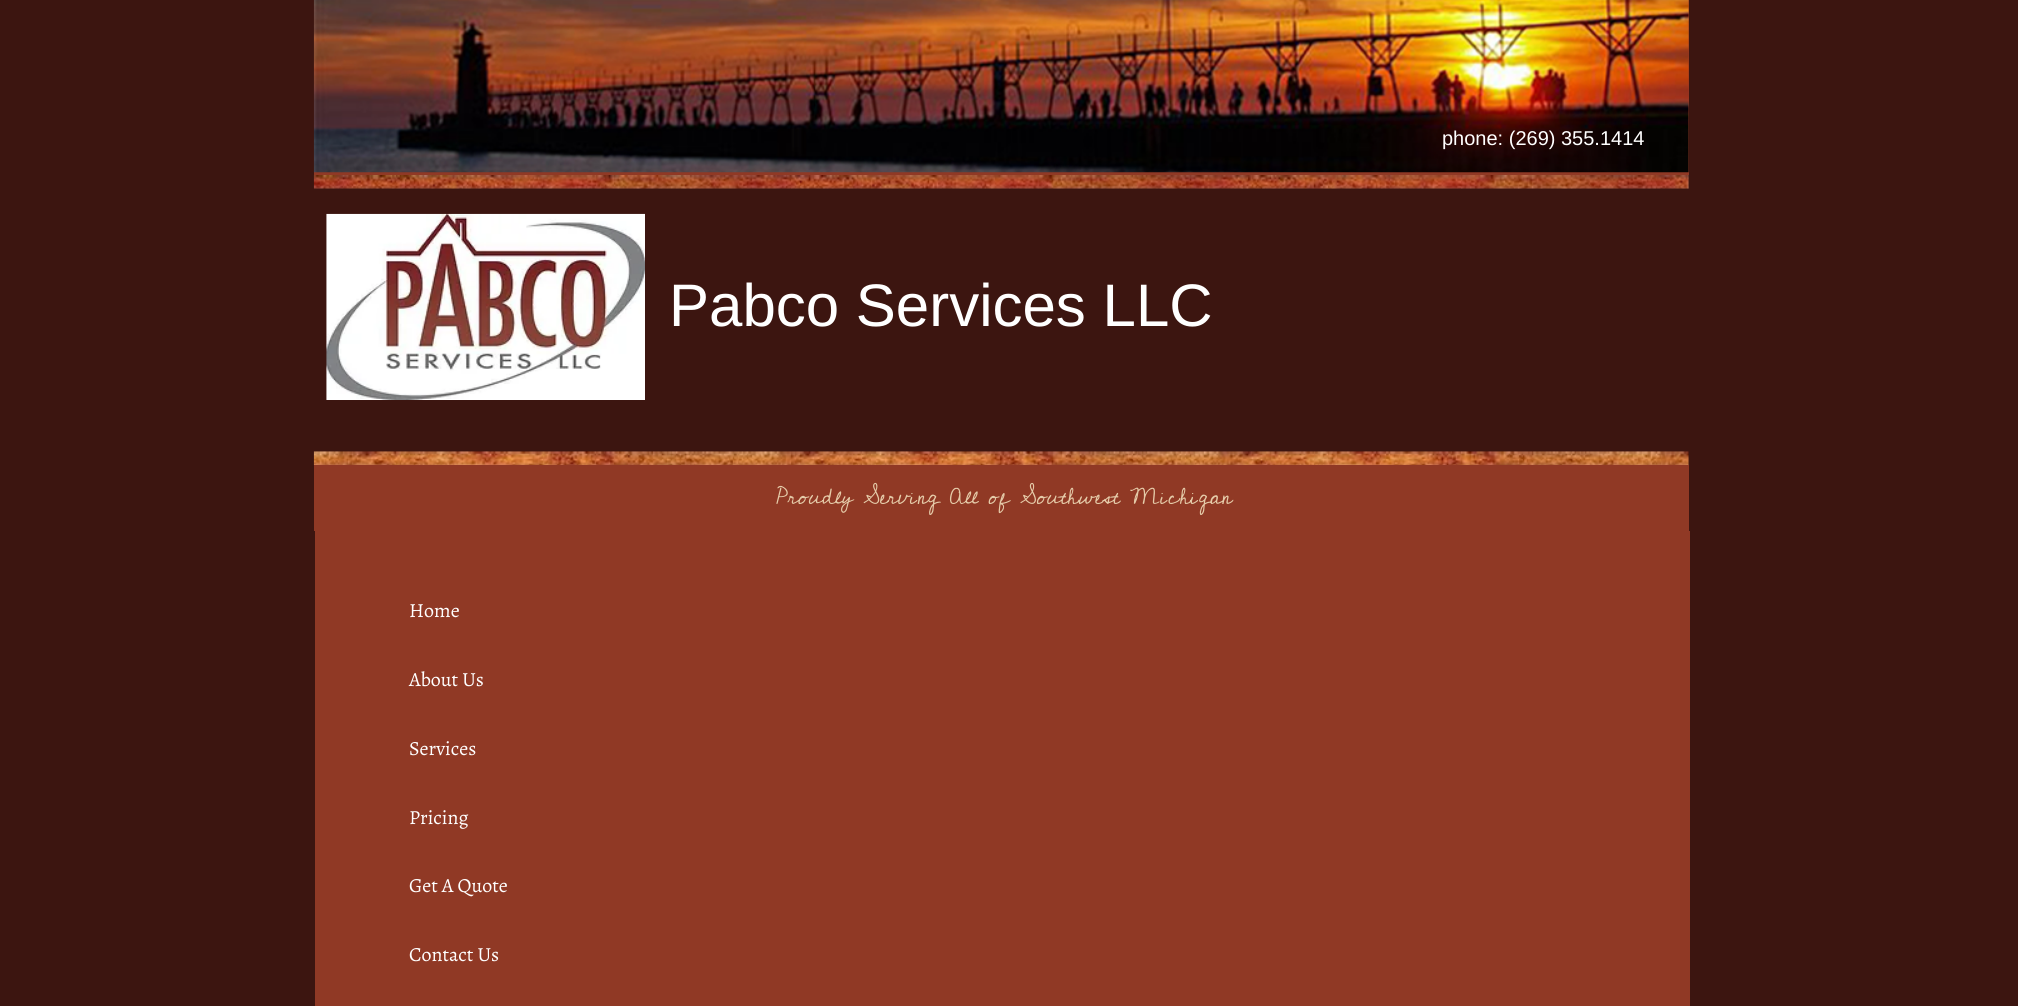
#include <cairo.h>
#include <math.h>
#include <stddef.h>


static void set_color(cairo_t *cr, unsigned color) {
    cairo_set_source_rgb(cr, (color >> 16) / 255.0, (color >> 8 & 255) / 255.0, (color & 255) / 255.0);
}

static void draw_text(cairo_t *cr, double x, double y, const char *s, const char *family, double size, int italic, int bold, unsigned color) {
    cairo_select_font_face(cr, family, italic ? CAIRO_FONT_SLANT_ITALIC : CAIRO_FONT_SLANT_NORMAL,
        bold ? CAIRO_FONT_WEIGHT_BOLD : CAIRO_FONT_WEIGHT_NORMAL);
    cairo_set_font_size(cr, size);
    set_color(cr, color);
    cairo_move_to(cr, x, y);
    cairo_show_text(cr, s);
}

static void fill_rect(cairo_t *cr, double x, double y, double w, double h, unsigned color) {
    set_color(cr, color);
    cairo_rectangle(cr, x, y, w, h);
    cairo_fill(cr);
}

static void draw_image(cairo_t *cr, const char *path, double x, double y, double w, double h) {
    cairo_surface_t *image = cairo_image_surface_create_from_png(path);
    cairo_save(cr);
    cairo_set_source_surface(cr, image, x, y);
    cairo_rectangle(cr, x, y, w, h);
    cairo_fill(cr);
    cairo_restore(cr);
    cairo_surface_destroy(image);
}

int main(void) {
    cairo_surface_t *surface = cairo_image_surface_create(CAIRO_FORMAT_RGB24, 2018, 1006);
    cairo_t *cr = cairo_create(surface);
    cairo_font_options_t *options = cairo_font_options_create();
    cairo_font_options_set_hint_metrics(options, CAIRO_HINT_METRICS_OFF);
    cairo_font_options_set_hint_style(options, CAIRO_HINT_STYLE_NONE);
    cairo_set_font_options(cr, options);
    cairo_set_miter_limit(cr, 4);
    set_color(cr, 0x3C1510);
    cairo_paint(cr);
    fill_rect(cr, 314, 0, 1375, 531, 0x903925);
    draw_image(cr, "assets/img1.png", 313, 0, 1376, 173);
    draw_text(cr, 1442, 145, "phone: (269) 355.1414", "Liberation Sans", 20, 0, 0, 0xFFFFFF);
    fill_rect(cr, 314, 175, 1375, 290, 0x3C1510);
    draw_image(cr, "assets/img2.png", 313, 175, 1376, 14);
    draw_image(cr, "assets/img3.png", 326, 213, 319, 187);
    draw_text(cr, 669, 326, "Pabco Services LLC", "Liberation Sans", 60, 0, 0, 0xFFFFFF);
    draw_image(cr, "assets/img4.png", 313, 451, 1376, 14);
    draw_text(cr, 776, 504, "Proudly Serving All of Southwest Michigan", "Cedarville Cursive", 22.5, 0, 0, 0xE5CBA9);
    fill_rect(cr, 315, 531, 1375, 475, 0x903925);
    draw_text(cr, 409, 617, "Home", "Alegreya", 20, 0, 0, 0xFFFFFF);
    draw_text(cr, 409, 686, "About Us", "Alegreya", 20, 0, 0, 0xFFFFFF);
    draw_text(cr, 409, 755, "Services", "Alegreya", 20, 0, 0, 0xFFFFFF);
    draw_text(cr, 409, 824, "Pricing", "Alegreya", 20, 0, 0, 0xFFFFFF);
    draw_text(cr, 409, 892, "Get A Quote", "Alegreya", 20, 0, 0, 0xFFFFFF);
    draw_text(cr, 409, 961, "Contact Us", "Alegreya", 20, 0, 0, 0xFFFFFF);
    cairo_surface_write_to_png(surface, "output.png");
    cairo_font_options_destroy(options);
    cairo_destroy(cr);
    cairo_surface_destroy(surface);
    return 0;
}
